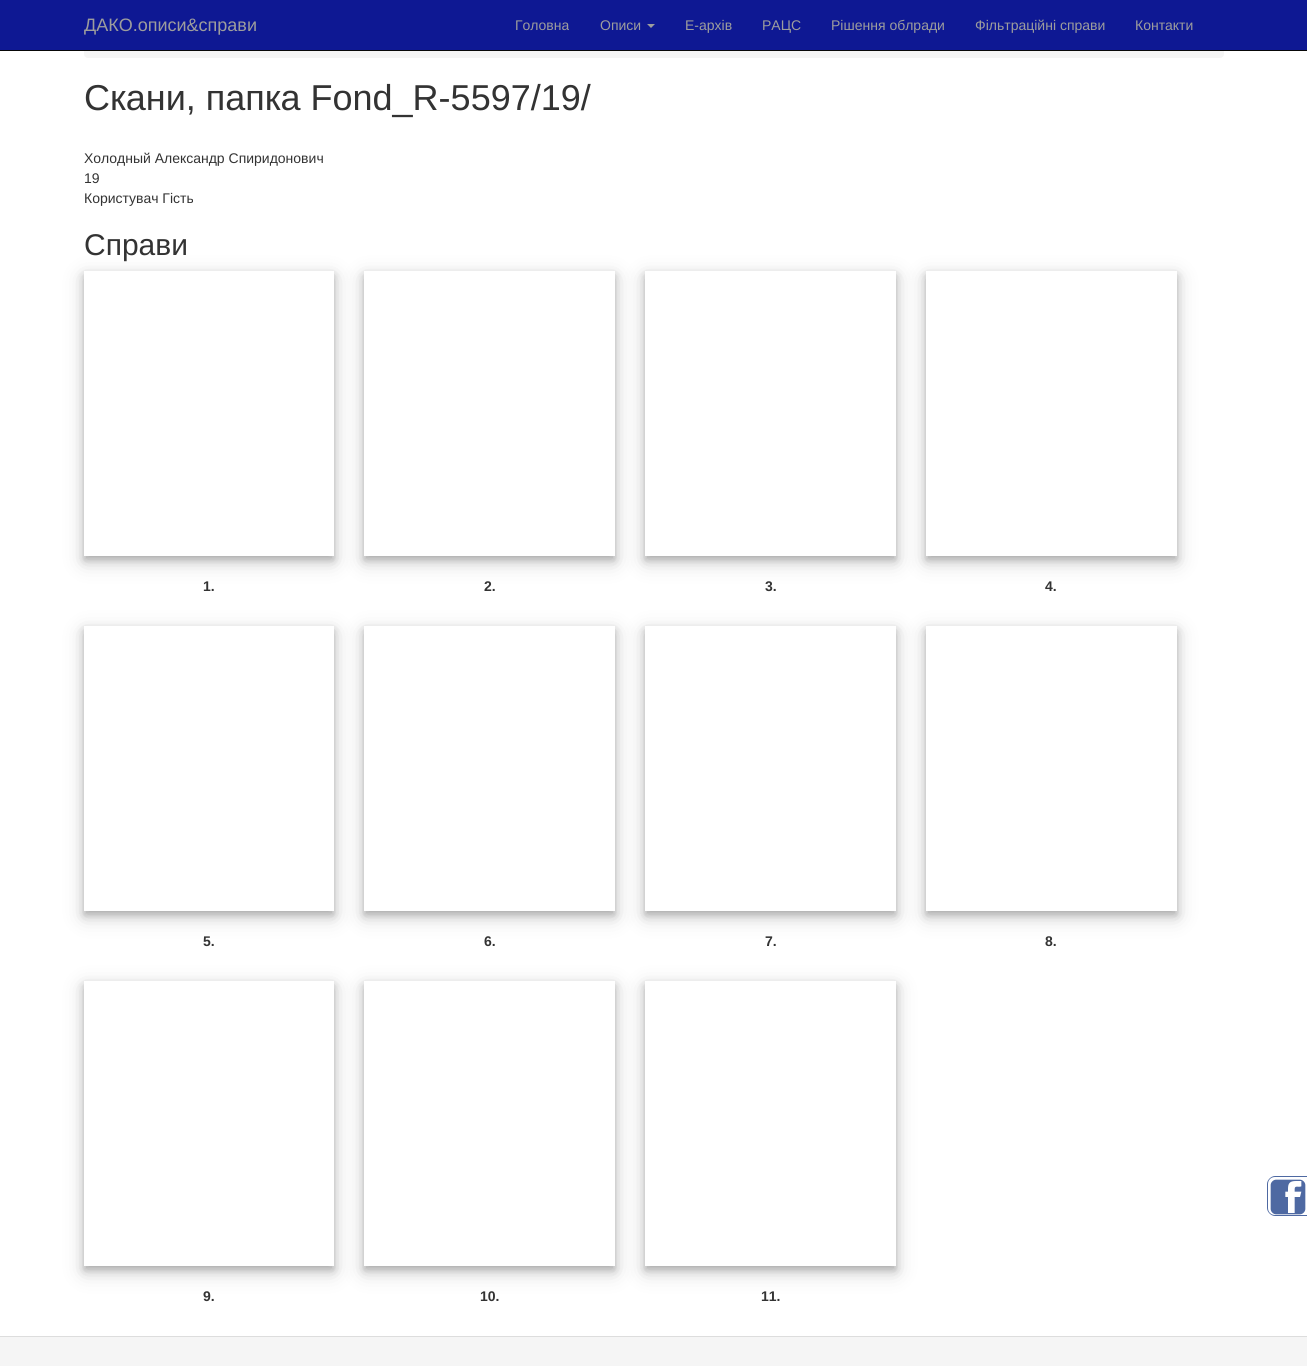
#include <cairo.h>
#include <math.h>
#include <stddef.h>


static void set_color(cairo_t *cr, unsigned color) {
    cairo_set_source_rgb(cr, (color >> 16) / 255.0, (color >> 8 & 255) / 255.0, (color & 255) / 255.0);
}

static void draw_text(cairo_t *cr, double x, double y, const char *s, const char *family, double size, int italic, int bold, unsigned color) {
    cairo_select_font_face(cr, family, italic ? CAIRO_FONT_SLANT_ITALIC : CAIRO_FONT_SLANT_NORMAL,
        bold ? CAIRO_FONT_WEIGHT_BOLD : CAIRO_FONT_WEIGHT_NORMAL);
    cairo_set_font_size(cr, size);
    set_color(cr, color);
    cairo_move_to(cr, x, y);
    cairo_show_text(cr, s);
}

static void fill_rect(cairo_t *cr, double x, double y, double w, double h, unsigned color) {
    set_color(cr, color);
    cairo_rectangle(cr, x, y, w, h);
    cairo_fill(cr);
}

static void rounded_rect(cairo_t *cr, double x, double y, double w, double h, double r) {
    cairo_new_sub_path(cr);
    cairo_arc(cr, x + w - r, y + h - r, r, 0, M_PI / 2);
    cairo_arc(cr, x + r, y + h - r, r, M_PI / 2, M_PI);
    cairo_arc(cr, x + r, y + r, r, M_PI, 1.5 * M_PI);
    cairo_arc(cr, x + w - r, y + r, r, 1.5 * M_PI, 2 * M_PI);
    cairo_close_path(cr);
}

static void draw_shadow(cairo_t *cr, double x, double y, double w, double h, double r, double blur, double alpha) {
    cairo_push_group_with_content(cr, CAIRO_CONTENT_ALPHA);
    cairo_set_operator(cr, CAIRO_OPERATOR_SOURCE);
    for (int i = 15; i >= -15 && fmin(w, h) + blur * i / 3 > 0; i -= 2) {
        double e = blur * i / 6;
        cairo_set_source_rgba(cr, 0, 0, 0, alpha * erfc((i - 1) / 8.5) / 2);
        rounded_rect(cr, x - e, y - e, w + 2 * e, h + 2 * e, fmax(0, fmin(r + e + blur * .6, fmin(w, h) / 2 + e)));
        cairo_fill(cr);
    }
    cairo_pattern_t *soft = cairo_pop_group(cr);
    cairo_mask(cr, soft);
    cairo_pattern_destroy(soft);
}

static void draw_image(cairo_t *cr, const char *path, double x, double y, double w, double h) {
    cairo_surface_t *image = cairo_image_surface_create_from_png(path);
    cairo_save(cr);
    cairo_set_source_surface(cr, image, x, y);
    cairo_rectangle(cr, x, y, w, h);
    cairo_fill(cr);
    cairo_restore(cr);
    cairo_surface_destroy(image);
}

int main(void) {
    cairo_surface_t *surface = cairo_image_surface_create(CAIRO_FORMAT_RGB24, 1307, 1366);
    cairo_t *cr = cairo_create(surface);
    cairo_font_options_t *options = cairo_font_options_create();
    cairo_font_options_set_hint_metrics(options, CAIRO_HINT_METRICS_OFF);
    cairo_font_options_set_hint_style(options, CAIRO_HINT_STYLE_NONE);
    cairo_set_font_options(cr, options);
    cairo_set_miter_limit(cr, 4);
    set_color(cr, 0xFFFFFF);
    cairo_paint(cr);
    set_color(cr, 0xF5F5F5);
    rounded_rect(cr, 84, 22, 1140, 36, 4);
    cairo_fill(cr);
    fill_rect(cr, 0, 0, 1307, 50, 0x0E1893);
    fill_rect(cr, 0, 50, 1307, 1, 0x080808);
    draw_text(cr, 84, 31, "ДАКО.описи&справи", "Liberation Sans", 18, 0, 0, 0x9D9D9D);
    draw_text(cr, 515, 30, "Головна", "Liberation Sans", 14, 0, 0, 0x9D9D9D);
    draw_text(cr, 600, 30, "Описи", "Liberation Sans", 14, 0, 0, 0x9D9D9D);
    cairo_new_path(cr);
    cairo_move_to(cr, 647, 24);
    cairo_line_to(cr, 655, 24);
    cairo_line_to(cr, 651, 28);
    cairo_close_path(cr);
    cairo_fill(cr);
    draw_text(cr, 685, 30, "Е-архів", "Liberation Sans", 14, 0, 0, 0x9D9D9D);
    draw_text(cr, 762, 30, "РАЦС", "Liberation Sans", 14, 0, 0, 0x9D9D9D);
    draw_text(cr, 831, 30, "Рішення облради", "Liberation Sans", 14, 0, 0, 0x9D9D9D);
    draw_text(cr, 975, 30, "Фільтраційні справи", "Liberation Sans", 14, 0, 0, 0x9D9D9D);
    draw_text(cr, 1135, 30, "Контакти", "Liberation Sans", 14, 0, 0, 0x9D9D9D);
    draw_text(cr, 84, 110, "Скани, папка Fond_R-5597/19/", "Liberation Sans", 36, 0, 0, 0x333333);
    draw_text(cr, 84, 163, "Холодный Александр Спиридонович", "Liberation Sans", 14, 0, 0, 0x333333);
    draw_text(cr, 84, 183, "19", "Liberation Sans", 14, 0, 0, 0x333333);
    draw_text(cr, 84, 203, "Користувач Гість", "Liberation Sans", 14, 0, 0, 0x333333);
    draw_text(cr, 84, 255, "Справи", "Liberation Sans", 30, 0, 0, 0x333333);
    cairo_save(cr);
    cairo_set_fill_rule(cr, CAIRO_FILL_RULE_EVEN_ODD);
    cairo_new_path(cr);
    cairo_move_to(cr, 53, 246);
    cairo_line_to(cr, 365, 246);
    cairo_line_to(cr, 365, 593);
    cairo_line_to(cr, 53, 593);
    cairo_close_path(cr);
    cairo_move_to(cr, 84, 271);
    cairo_line_to(cr, 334, 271);
    cairo_line_to(cr, 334, 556);
    cairo_line_to(cr, 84, 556);
    cairo_close_path(cr);
    cairo_clip(cr);
    set_color(cr, 0x000000);
    draw_shadow(cr, 84, 277, 250, 285, 0, 10, 0.19);
    cairo_restore(cr);
    cairo_save(cr);
    cairo_set_fill_rule(cr, CAIRO_FILL_RULE_EVEN_ODD);
    cairo_new_path(cr);
    cairo_move_to(cr, 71, 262);
    cairo_line_to(cr, 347, 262);
    cairo_line_to(cr, 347, 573);
    cairo_line_to(cr, 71, 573);
    cairo_close_path(cr);
    cairo_move_to(cr, 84, 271);
    cairo_line_to(cr, 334, 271);
    cairo_line_to(cr, 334, 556);
    cairo_line_to(cr, 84, 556);
    cairo_close_path(cr);
    cairo_clip(cr);
    set_color(cr, 0x000000);
    draw_shadow(cr, 84, 275, 250, 285, 0, 4, 0.2);
    cairo_restore(cr);
    draw_text(cr, 203, 591, "1.", "Liberation Sans", 14, 0, 1, 0x333333);
    cairo_save(cr);
    cairo_set_fill_rule(cr, CAIRO_FILL_RULE_EVEN_ODD);
    cairo_new_path(cr);
    cairo_move_to(cr, 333, 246);
    cairo_line_to(cr, 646, 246);
    cairo_line_to(cr, 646, 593);
    cairo_line_to(cr, 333, 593);
    cairo_close_path(cr);
    cairo_move_to(cr, 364, 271);
    cairo_line_to(cr, 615, 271);
    cairo_line_to(cr, 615, 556);
    cairo_line_to(cr, 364, 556);
    cairo_close_path(cr);
    cairo_clip(cr);
    set_color(cr, 0x000000);
    draw_shadow(cr, 364, 277, 251, 285, 0, 10, 0.19);
    cairo_restore(cr);
    cairo_save(cr);
    cairo_set_fill_rule(cr, CAIRO_FILL_RULE_EVEN_ODD);
    cairo_new_path(cr);
    cairo_move_to(cr, 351, 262);
    cairo_line_to(cr, 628, 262);
    cairo_line_to(cr, 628, 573);
    cairo_line_to(cr, 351, 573);
    cairo_close_path(cr);
    cairo_move_to(cr, 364, 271);
    cairo_line_to(cr, 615, 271);
    cairo_line_to(cr, 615, 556);
    cairo_line_to(cr, 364, 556);
    cairo_close_path(cr);
    cairo_clip(cr);
    set_color(cr, 0x000000);
    draw_shadow(cr, 364, 275, 251, 285, 0, 4, 0.2);
    cairo_restore(cr);
    draw_text(cr, 484, 591, "2.", "Liberation Sans", 14, 0, 1, 0x333333);
    cairo_save(cr);
    cairo_set_fill_rule(cr, CAIRO_FILL_RULE_EVEN_ODD);
    cairo_new_path(cr);
    cairo_move_to(cr, 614, 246);
    cairo_line_to(cr, 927, 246);
    cairo_line_to(cr, 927, 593);
    cairo_line_to(cr, 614, 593);
    cairo_close_path(cr);
    cairo_move_to(cr, 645, 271);
    cairo_line_to(cr, 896, 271);
    cairo_line_to(cr, 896, 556);
    cairo_line_to(cr, 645, 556);
    cairo_close_path(cr);
    cairo_clip(cr);
    set_color(cr, 0x000000);
    draw_shadow(cr, 645, 277, 251, 285, 0, 10, 0.19);
    cairo_restore(cr);
    cairo_save(cr);
    cairo_set_fill_rule(cr, CAIRO_FILL_RULE_EVEN_ODD);
    cairo_new_path(cr);
    cairo_move_to(cr, 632, 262);
    cairo_line_to(cr, 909, 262);
    cairo_line_to(cr, 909, 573);
    cairo_line_to(cr, 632, 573);
    cairo_close_path(cr);
    cairo_move_to(cr, 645, 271);
    cairo_line_to(cr, 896, 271);
    cairo_line_to(cr, 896, 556);
    cairo_line_to(cr, 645, 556);
    cairo_close_path(cr);
    cairo_clip(cr);
    set_color(cr, 0x000000);
    draw_shadow(cr, 645, 275, 251, 285, 0, 4, 0.2);
    cairo_restore(cr);
    draw_text(cr, 765, 591, "3.", "Liberation Sans", 14, 0, 1, 0x333333);
    cairo_save(cr);
    cairo_set_fill_rule(cr, CAIRO_FILL_RULE_EVEN_ODD);
    cairo_new_path(cr);
    cairo_move_to(cr, 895, 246);
    cairo_line_to(cr, 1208, 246);
    cairo_line_to(cr, 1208, 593);
    cairo_line_to(cr, 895, 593);
    cairo_close_path(cr);
    cairo_move_to(cr, 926, 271);
    cairo_line_to(cr, 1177, 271);
    cairo_line_to(cr, 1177, 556);
    cairo_line_to(cr, 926, 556);
    cairo_close_path(cr);
    cairo_clip(cr);
    set_color(cr, 0x000000);
    draw_shadow(cr, 926, 277, 251, 285, 0, 10, 0.19);
    cairo_restore(cr);
    cairo_save(cr);
    cairo_set_fill_rule(cr, CAIRO_FILL_RULE_EVEN_ODD);
    cairo_new_path(cr);
    cairo_move_to(cr, 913, 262);
    cairo_line_to(cr, 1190, 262);
    cairo_line_to(cr, 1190, 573);
    cairo_line_to(cr, 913, 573);
    cairo_close_path(cr);
    cairo_move_to(cr, 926, 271);
    cairo_line_to(cr, 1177, 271);
    cairo_line_to(cr, 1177, 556);
    cairo_line_to(cr, 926, 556);
    cairo_close_path(cr);
    cairo_clip(cr);
    set_color(cr, 0x000000);
    draw_shadow(cr, 926, 275, 251, 285, 0, 4, 0.2);
    cairo_restore(cr);
    draw_text(cr, 1045, 591, "4.", "Liberation Sans", 14, 0, 1, 0x333333);
    cairo_save(cr);
    cairo_set_fill_rule(cr, CAIRO_FILL_RULE_EVEN_ODD);
    cairo_new_path(cr);
    cairo_move_to(cr, 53, 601);
    cairo_line_to(cr, 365, 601);
    cairo_line_to(cr, 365, 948);
    cairo_line_to(cr, 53, 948);
    cairo_close_path(cr);
    cairo_move_to(cr, 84, 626);
    cairo_line_to(cr, 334, 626);
    cairo_line_to(cr, 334, 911);
    cairo_line_to(cr, 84, 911);
    cairo_close_path(cr);
    cairo_clip(cr);
    set_color(cr, 0x000000);
    draw_shadow(cr, 84, 632, 250, 285, 0, 10, 0.19);
    cairo_restore(cr);
    cairo_save(cr);
    cairo_set_fill_rule(cr, CAIRO_FILL_RULE_EVEN_ODD);
    cairo_new_path(cr);
    cairo_move_to(cr, 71, 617);
    cairo_line_to(cr, 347, 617);
    cairo_line_to(cr, 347, 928);
    cairo_line_to(cr, 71, 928);
    cairo_close_path(cr);
    cairo_move_to(cr, 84, 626);
    cairo_line_to(cr, 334, 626);
    cairo_line_to(cr, 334, 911);
    cairo_line_to(cr, 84, 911);
    cairo_close_path(cr);
    cairo_clip(cr);
    set_color(cr, 0x000000);
    draw_shadow(cr, 84, 630, 250, 285, 0, 4, 0.2);
    cairo_restore(cr);
    draw_text(cr, 203, 946, "5.", "Liberation Sans", 14, 0, 1, 0x333333);
    cairo_save(cr);
    cairo_set_fill_rule(cr, CAIRO_FILL_RULE_EVEN_ODD);
    cairo_new_path(cr);
    cairo_move_to(cr, 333, 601);
    cairo_line_to(cr, 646, 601);
    cairo_line_to(cr, 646, 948);
    cairo_line_to(cr, 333, 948);
    cairo_close_path(cr);
    cairo_move_to(cr, 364, 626);
    cairo_line_to(cr, 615, 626);
    cairo_line_to(cr, 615, 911);
    cairo_line_to(cr, 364, 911);
    cairo_close_path(cr);
    cairo_clip(cr);
    set_color(cr, 0x000000);
    draw_shadow(cr, 364, 632, 251, 285, 0, 10, 0.19);
    cairo_restore(cr);
    cairo_save(cr);
    cairo_set_fill_rule(cr, CAIRO_FILL_RULE_EVEN_ODD);
    cairo_new_path(cr);
    cairo_move_to(cr, 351, 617);
    cairo_line_to(cr, 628, 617);
    cairo_line_to(cr, 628, 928);
    cairo_line_to(cr, 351, 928);
    cairo_close_path(cr);
    cairo_move_to(cr, 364, 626);
    cairo_line_to(cr, 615, 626);
    cairo_line_to(cr, 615, 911);
    cairo_line_to(cr, 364, 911);
    cairo_close_path(cr);
    cairo_clip(cr);
    set_color(cr, 0x000000);
    draw_shadow(cr, 364, 630, 251, 285, 0, 4, 0.2);
    cairo_restore(cr);
    draw_text(cr, 484, 946, "6.", "Liberation Sans", 14, 0, 1, 0x333333);
    cairo_save(cr);
    cairo_set_fill_rule(cr, CAIRO_FILL_RULE_EVEN_ODD);
    cairo_new_path(cr);
    cairo_move_to(cr, 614, 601);
    cairo_line_to(cr, 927, 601);
    cairo_line_to(cr, 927, 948);
    cairo_line_to(cr, 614, 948);
    cairo_close_path(cr);
    cairo_move_to(cr, 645, 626);
    cairo_line_to(cr, 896, 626);
    cairo_line_to(cr, 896, 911);
    cairo_line_to(cr, 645, 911);
    cairo_close_path(cr);
    cairo_clip(cr);
    set_color(cr, 0x000000);
    draw_shadow(cr, 645, 632, 251, 285, 0, 10, 0.19);
    cairo_restore(cr);
    cairo_save(cr);
    cairo_set_fill_rule(cr, CAIRO_FILL_RULE_EVEN_ODD);
    cairo_new_path(cr);
    cairo_move_to(cr, 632, 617);
    cairo_line_to(cr, 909, 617);
    cairo_line_to(cr, 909, 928);
    cairo_line_to(cr, 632, 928);
    cairo_close_path(cr);
    cairo_move_to(cr, 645, 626);
    cairo_line_to(cr, 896, 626);
    cairo_line_to(cr, 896, 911);
    cairo_line_to(cr, 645, 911);
    cairo_close_path(cr);
    cairo_clip(cr);
    set_color(cr, 0x000000);
    draw_shadow(cr, 645, 630, 251, 285, 0, 4, 0.2);
    cairo_restore(cr);
    draw_text(cr, 765, 946, "7.", "Liberation Sans", 14, 0, 1, 0x333333);
    cairo_save(cr);
    cairo_set_fill_rule(cr, CAIRO_FILL_RULE_EVEN_ODD);
    cairo_new_path(cr);
    cairo_move_to(cr, 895, 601);
    cairo_line_to(cr, 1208, 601);
    cairo_line_to(cr, 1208, 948);
    cairo_line_to(cr, 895, 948);
    cairo_close_path(cr);
    cairo_move_to(cr, 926, 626);
    cairo_line_to(cr, 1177, 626);
    cairo_line_to(cr, 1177, 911);
    cairo_line_to(cr, 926, 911);
    cairo_close_path(cr);
    cairo_clip(cr);
    set_color(cr, 0x000000);
    draw_shadow(cr, 926, 632, 251, 285, 0, 10, 0.19);
    cairo_restore(cr);
    cairo_save(cr);
    cairo_set_fill_rule(cr, CAIRO_FILL_RULE_EVEN_ODD);
    cairo_new_path(cr);
    cairo_move_to(cr, 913, 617);
    cairo_line_to(cr, 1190, 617);
    cairo_line_to(cr, 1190, 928);
    cairo_line_to(cr, 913, 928);
    cairo_close_path(cr);
    cairo_move_to(cr, 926, 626);
    cairo_line_to(cr, 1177, 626);
    cairo_line_to(cr, 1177, 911);
    cairo_line_to(cr, 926, 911);
    cairo_close_path(cr);
    cairo_clip(cr);
    set_color(cr, 0x000000);
    draw_shadow(cr, 926, 630, 251, 285, 0, 4, 0.2);
    cairo_restore(cr);
    draw_text(cr, 1045, 946, "8.", "Liberation Sans", 14, 0, 1, 0x333333);
    cairo_save(cr);
    cairo_set_fill_rule(cr, CAIRO_FILL_RULE_EVEN_ODD);
    cairo_new_path(cr);
    cairo_move_to(cr, 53, 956);
    cairo_line_to(cr, 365, 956);
    cairo_line_to(cr, 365, 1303);
    cairo_line_to(cr, 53, 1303);
    cairo_close_path(cr);
    cairo_move_to(cr, 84, 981);
    cairo_line_to(cr, 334, 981);
    cairo_line_to(cr, 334, 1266);
    cairo_line_to(cr, 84, 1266);
    cairo_close_path(cr);
    cairo_clip(cr);
    set_color(cr, 0x000000);
    draw_shadow(cr, 84, 987, 250, 285, 0, 10, 0.19);
    cairo_restore(cr);
    cairo_save(cr);
    cairo_set_fill_rule(cr, CAIRO_FILL_RULE_EVEN_ODD);
    cairo_new_path(cr);
    cairo_move_to(cr, 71, 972);
    cairo_line_to(cr, 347, 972);
    cairo_line_to(cr, 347, 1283);
    cairo_line_to(cr, 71, 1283);
    cairo_close_path(cr);
    cairo_move_to(cr, 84, 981);
    cairo_line_to(cr, 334, 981);
    cairo_line_to(cr, 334, 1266);
    cairo_line_to(cr, 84, 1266);
    cairo_close_path(cr);
    cairo_clip(cr);
    set_color(cr, 0x000000);
    draw_shadow(cr, 84, 985, 250, 285, 0, 4, 0.2);
    cairo_restore(cr);
    draw_text(cr, 203, 1301, "9.", "Liberation Sans", 14, 0, 1, 0x333333);
    cairo_save(cr);
    cairo_set_fill_rule(cr, CAIRO_FILL_RULE_EVEN_ODD);
    cairo_new_path(cr);
    cairo_move_to(cr, 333, 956);
    cairo_line_to(cr, 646, 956);
    cairo_line_to(cr, 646, 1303);
    cairo_line_to(cr, 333, 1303);
    cairo_close_path(cr);
    cairo_move_to(cr, 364, 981);
    cairo_line_to(cr, 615, 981);
    cairo_line_to(cr, 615, 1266);
    cairo_line_to(cr, 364, 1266);
    cairo_close_path(cr);
    cairo_clip(cr);
    set_color(cr, 0x000000);
    draw_shadow(cr, 364, 987, 251, 285, 0, 10, 0.19);
    cairo_restore(cr);
    cairo_save(cr);
    cairo_set_fill_rule(cr, CAIRO_FILL_RULE_EVEN_ODD);
    cairo_new_path(cr);
    cairo_move_to(cr, 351, 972);
    cairo_line_to(cr, 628, 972);
    cairo_line_to(cr, 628, 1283);
    cairo_line_to(cr, 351, 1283);
    cairo_close_path(cr);
    cairo_move_to(cr, 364, 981);
    cairo_line_to(cr, 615, 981);
    cairo_line_to(cr, 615, 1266);
    cairo_line_to(cr, 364, 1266);
    cairo_close_path(cr);
    cairo_clip(cr);
    set_color(cr, 0x000000);
    draw_shadow(cr, 364, 985, 251, 285, 0, 4, 0.2);
    cairo_restore(cr);
    draw_text(cr, 480, 1301, "10.", "Liberation Sans", 14, 0, 1, 0x333333);
    cairo_save(cr);
    cairo_set_fill_rule(cr, CAIRO_FILL_RULE_EVEN_ODD);
    cairo_new_path(cr);
    cairo_move_to(cr, 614, 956);
    cairo_line_to(cr, 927, 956);
    cairo_line_to(cr, 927, 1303);
    cairo_line_to(cr, 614, 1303);
    cairo_close_path(cr);
    cairo_move_to(cr, 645, 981);
    cairo_line_to(cr, 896, 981);
    cairo_line_to(cr, 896, 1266);
    cairo_line_to(cr, 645, 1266);
    cairo_close_path(cr);
    cairo_clip(cr);
    set_color(cr, 0x000000);
    draw_shadow(cr, 645, 987, 251, 285, 0, 10, 0.19);
    cairo_restore(cr);
    cairo_save(cr);
    cairo_set_fill_rule(cr, CAIRO_FILL_RULE_EVEN_ODD);
    cairo_new_path(cr);
    cairo_move_to(cr, 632, 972);
    cairo_line_to(cr, 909, 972);
    cairo_line_to(cr, 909, 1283);
    cairo_line_to(cr, 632, 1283);
    cairo_close_path(cr);
    cairo_move_to(cr, 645, 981);
    cairo_line_to(cr, 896, 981);
    cairo_line_to(cr, 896, 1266);
    cairo_line_to(cr, 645, 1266);
    cairo_close_path(cr);
    cairo_clip(cr);
    set_color(cr, 0x000000);
    draw_shadow(cr, 645, 985, 251, 285, 0, 4, 0.2);
    cairo_restore(cr);
    draw_text(cr, 761, 1301, "11.", "Liberation Sans", 14, 0, 1, 0x333333);
    set_color(cr, 0x4E69A2);
    cairo_set_fill_rule(cr, CAIRO_FILL_RULE_EVEN_ODD);
    cairo_new_path(cr);
    cairo_move_to(cr, 1275, 1176);
    cairo_line_to(cr, 1307, 1176);
    cairo_line_to(cr, 1307, 1216);
    cairo_line_to(cr, 1275, 1216);
    cairo_curve_to(cr, 1271, 1216, 1267, 1212, 1267, 1208);
    cairo_line_to(cr, 1267, 1184);
    cairo_curve_to(cr, 1267, 1180, 1271, 1176, 1275, 1176);
    cairo_close_path(cr);
    cairo_move_to(cr, 1275, 1177);
    cairo_line_to(cr, 1307, 1177);
    cairo_line_to(cr, 1307, 1215);
    cairo_line_to(cr, 1275, 1215);
    cairo_curve_to(cr, 1271, 1215, 1268, 1212, 1268, 1208);
    cairo_line_to(cr, 1268, 1184);
    cairo_curve_to(cr, 1268, 1180, 1271, 1177, 1275, 1177);
    cairo_close_path(cr);
    cairo_fill(cr);
    draw_image(cr, "assets/img1.png", 1270, 1179, 36, 36);
    fill_rect(cr, 0, 1337, 1307, 29, 0xF5F5F5);
    fill_rect(cr, 0, 1336, 1307, 1, 0xDDDDDD);
    cairo_surface_write_to_png(surface, "output.png");
    cairo_font_options_destroy(options);
    cairo_destroy(cr);
    cairo_surface_destroy(surface);
    return 0;
}
